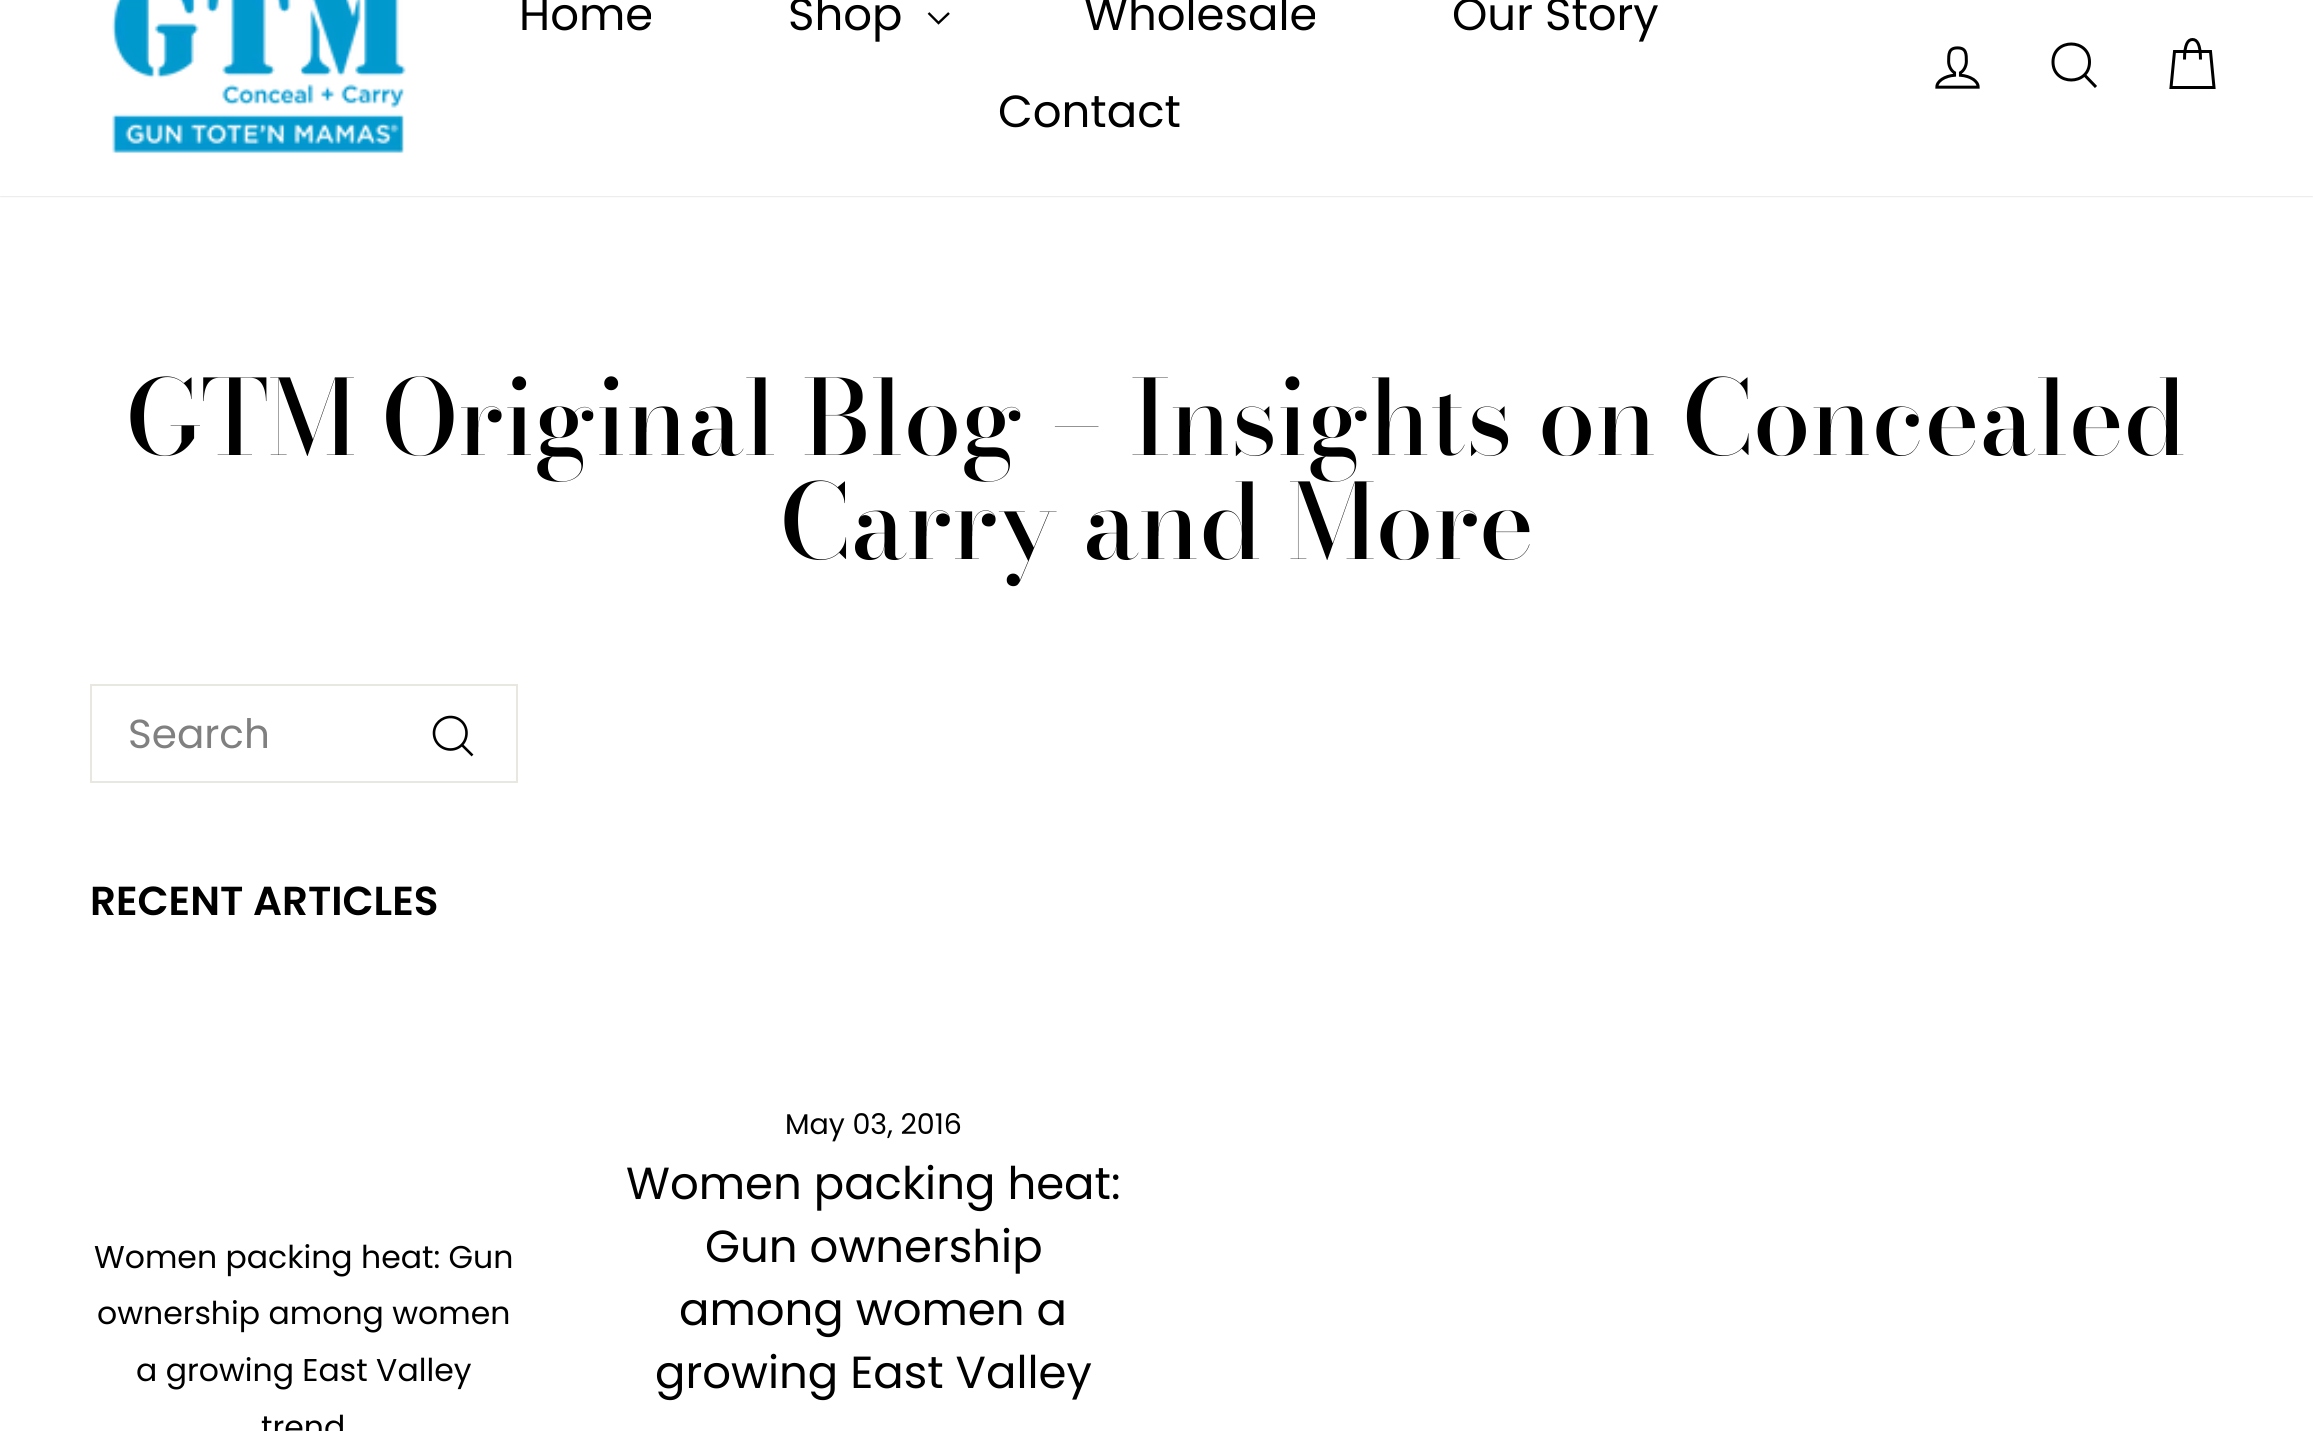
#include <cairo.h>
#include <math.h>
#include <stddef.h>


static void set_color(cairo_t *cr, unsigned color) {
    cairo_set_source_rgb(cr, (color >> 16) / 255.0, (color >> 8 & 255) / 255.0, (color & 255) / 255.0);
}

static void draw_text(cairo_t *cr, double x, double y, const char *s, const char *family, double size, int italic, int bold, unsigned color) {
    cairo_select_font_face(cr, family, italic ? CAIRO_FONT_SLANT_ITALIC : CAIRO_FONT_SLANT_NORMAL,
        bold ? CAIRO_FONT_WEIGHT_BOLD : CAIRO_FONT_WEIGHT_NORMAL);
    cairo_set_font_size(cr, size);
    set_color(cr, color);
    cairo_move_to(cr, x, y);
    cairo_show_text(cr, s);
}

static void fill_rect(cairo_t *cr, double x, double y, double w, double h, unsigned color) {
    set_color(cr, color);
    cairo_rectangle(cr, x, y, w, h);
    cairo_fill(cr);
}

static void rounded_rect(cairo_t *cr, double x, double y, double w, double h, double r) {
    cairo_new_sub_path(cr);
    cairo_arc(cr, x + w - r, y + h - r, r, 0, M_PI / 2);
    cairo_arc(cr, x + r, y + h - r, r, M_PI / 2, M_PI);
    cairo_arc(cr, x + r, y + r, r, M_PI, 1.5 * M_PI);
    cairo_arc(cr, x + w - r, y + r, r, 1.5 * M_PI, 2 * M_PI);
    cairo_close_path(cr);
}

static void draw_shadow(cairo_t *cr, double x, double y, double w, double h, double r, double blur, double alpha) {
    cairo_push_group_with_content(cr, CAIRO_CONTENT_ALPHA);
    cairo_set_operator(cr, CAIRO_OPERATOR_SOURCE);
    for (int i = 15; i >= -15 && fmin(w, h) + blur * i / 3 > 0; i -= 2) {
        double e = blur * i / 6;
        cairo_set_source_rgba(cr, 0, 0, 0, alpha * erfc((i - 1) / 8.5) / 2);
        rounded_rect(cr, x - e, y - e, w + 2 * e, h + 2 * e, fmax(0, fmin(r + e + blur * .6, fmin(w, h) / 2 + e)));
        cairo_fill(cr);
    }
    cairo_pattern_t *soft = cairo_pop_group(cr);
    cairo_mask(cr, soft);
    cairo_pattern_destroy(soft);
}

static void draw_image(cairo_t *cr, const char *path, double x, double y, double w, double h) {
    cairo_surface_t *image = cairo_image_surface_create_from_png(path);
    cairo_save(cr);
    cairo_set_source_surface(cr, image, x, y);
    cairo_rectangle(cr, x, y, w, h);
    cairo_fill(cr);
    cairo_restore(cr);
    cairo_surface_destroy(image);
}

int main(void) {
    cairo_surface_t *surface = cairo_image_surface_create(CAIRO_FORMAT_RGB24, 2313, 1431);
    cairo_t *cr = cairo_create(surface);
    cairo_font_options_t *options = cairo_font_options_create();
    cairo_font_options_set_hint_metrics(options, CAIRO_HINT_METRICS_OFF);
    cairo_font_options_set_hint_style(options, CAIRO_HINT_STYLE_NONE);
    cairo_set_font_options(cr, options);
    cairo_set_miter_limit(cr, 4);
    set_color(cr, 0xFFFFFF);
    cairo_paint(cr);
    set_color(cr, 0x000000);
    draw_shadow(cr, 0, -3, 2313, 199, 0, 1, 0.2);
    fill_rect(cr, 0, 0, 2313, 196, 0xFFFFFF);
    draw_image(cr, "assets/img1.png", 112, 0, 294, 153);
    draw_text(cr, 519, 30, "Home", "Poppins", 45, 0, 0, 0x000000);
    draw_text(cr, 788, 30, "Shop", "Poppins", 45, 0, 0, 0x000000);
    cairo_new_path(cr);
    cairo_move_to(cr, 928.5, 13);
    cairo_line_to(cr, 938.5, 23);
    cairo_line_to(cr, 949, 13);
    cairo_set_line_width(cr, 2.4);
    cairo_stroke(cr);
    draw_text(cr, 1084, 30, "Wholesale", "Poppins", 45, 0, 0, 0x000000);
    draw_text(cr, 1452, 30, "Our Story", "Poppins", 45, 0, 0, 0x000000);
    draw_text(cr, 998, 127, "Contact", "Poppins", 45, 0, 0, 0x000000);
    draw_image(cr, "assets/img2.png", 1935, 46, 45, 43);
    cairo_new_path(cr);
    cairo_move_to(cr, 2089.5, 62);
    cairo_curve_to(cr, 2089.5, 86, 2053, 86, 2053, 62);
    cairo_curve_to(cr, 2053, 38, 2089.5, 38, 2089.5, 62);
    cairo_close_path(cr);
    cairo_move_to(cr, 2096, 87);
    cairo_line_to(cr, 2084.5, 75);
    cairo_set_line_width(cr, 3);
    cairo_stroke(cr);
    cairo_new_path(cr);
    cairo_move_to(cr, 2184.5, 59.5);
    cairo_curve_to(cr, 2184.5, 44, 2188, 39.5, 2192.5, 39.5);
    cairo_curve_to(cr, 2197, 39.5, 2200.5, 44, 2200.5, 59.5);
    cairo_move_to(cr, 2174.5, 51.5);
    cairo_line_to(cr, 2210.5, 51.5);
    cairo_line_to(cr, 2214, 87.5);
    cairo_line_to(cr, 2171, 87.5);
    cairo_close_path(cr);
    cairo_stroke(cr);
    draw_text(cr, 126, 455, "GTM Original Blog – Insights on Concealed", "Bodoni Moda Medium", 103.5, 0, 0, 0x000000);
    draw_text(cr, 780, 559, "Carry and More", "Bodoni Moda Medium", 103.5, 0, 0, 0x000000);
    cairo_rectangle(cr, 91, 685, 426, 97);
    set_color(cr, 0xE8E8E1);
    cairo_set_line_width(cr, 2);
    cairo_stroke(cr);
    draw_text(cr, 128, 748, "Search", "Poppins", 40.5, 0, 0, 0x808080);
    cairo_new_path(cr);
    cairo_move_to(cr, 466.5, 733);
    cairo_curve_to(cr, 466.5, 742.5, 459.5, 749.5, 450.5, 749.5);
    cairo_curve_to(cr, 441.5, 749.5, 434, 742.5, 434, 733);
    cairo_curve_to(cr, 434, 724, 441.5, 717, 450.5, 717);
    cairo_curve_to(cr, 459.5, 717, 466.5, 724, 466.5, 733);
    cairo_close_path(cr);
    cairo_move_to(cr, 472.5, 755.5);
    cairo_line_to(cr, 462, 745);
    set_color(cr, 0x000000);
    cairo_set_line_width(cr, 2.6);
    cairo_stroke(cr);
    draw_text(cr, 90, 915, "RECENT ARTICLES", "Poppins SemiBold", 40.5, 0, 0, 0x000000);
    draw_text(cr, 94, 1268, "Women packing heat: Gun", "Poppins", 31.5, 0, 0, 0x000000);
    draw_text(cr, 97, 1324, "ownership among women", "Poppins", 31.5, 0, 0, 0x000000);
    draw_text(cr, 136, 1381, "a growing East Valley", "Poppins", 31.5, 0, 0, 0x000000);
    draw_text(cr, 261, 1438, "trend", "Poppins", 31.5, 0, 0, 0x000000);
    draw_text(cr, 785, 1134, "May 03, 2016", "Poppins", 28.5, 0, 0, 0x000000);
    draw_text(cr, 626, 1199, "Women packing heat:", "Poppins", 45, 0, 0, 0x000000);
    draw_text(cr, 705, 1262, "Gun ownership", "Poppins", 45, 0, 0, 0x000000);
    draw_text(cr, 679, 1325, "among women a", "Poppins", 45, 0, 0, 0x000000);
    draw_text(cr, 655, 1388, "growing East Valley", "Poppins", 45, 0, 0, 0x000000);
    cairo_surface_write_to_png(surface, "output.png");
    cairo_font_options_destroy(options);
    cairo_destroy(cr);
    cairo_surface_destroy(surface);
    return 0;
}
